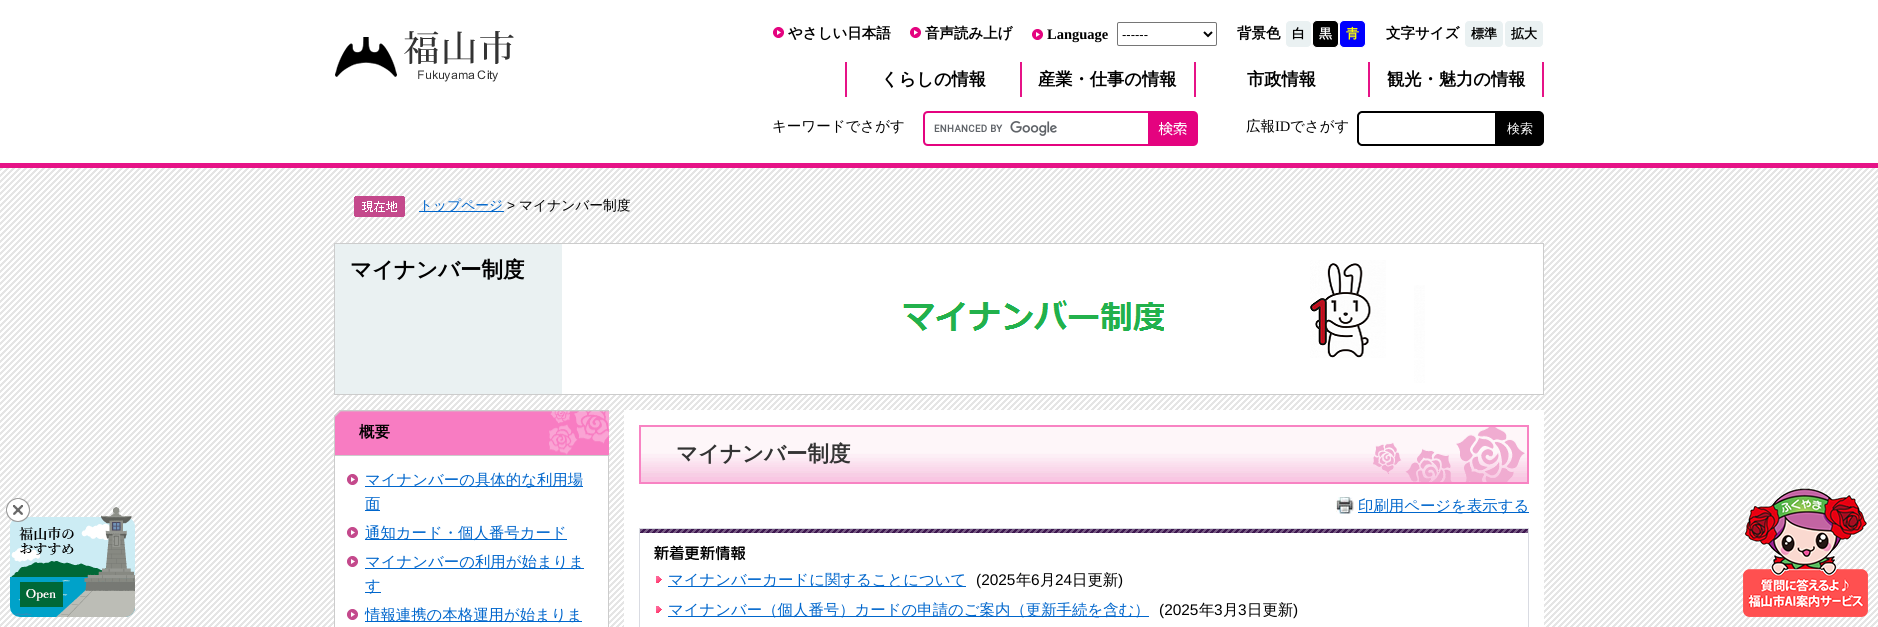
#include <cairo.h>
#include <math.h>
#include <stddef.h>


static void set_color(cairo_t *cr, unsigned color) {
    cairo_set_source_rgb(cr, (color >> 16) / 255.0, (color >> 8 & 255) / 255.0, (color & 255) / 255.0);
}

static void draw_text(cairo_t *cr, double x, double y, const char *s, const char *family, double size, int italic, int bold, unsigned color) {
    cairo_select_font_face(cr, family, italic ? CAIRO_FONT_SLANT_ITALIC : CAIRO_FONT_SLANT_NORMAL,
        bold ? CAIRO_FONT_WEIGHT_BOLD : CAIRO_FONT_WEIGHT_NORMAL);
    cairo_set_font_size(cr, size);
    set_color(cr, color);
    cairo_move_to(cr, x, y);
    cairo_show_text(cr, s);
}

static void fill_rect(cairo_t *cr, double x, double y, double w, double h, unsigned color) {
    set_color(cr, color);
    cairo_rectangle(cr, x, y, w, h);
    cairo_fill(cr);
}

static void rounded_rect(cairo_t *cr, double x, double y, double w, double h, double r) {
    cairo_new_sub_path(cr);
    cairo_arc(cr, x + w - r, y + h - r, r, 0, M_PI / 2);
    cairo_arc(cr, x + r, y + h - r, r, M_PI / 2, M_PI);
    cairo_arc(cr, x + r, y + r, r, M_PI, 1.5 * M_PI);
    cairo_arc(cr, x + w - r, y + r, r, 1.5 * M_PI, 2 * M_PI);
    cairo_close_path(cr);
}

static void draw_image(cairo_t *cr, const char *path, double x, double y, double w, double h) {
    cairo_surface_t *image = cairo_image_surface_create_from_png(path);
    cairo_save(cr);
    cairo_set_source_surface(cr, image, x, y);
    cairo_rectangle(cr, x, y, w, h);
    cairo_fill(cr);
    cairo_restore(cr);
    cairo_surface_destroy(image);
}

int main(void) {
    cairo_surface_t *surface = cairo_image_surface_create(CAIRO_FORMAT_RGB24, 1878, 627);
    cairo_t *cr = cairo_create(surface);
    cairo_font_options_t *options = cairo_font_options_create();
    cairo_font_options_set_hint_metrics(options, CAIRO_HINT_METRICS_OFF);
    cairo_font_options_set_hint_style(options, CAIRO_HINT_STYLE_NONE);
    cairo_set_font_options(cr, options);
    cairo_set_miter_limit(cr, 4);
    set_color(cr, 0xFFFFFF);
    cairo_paint(cr);
    draw_image(cr, "assets/img1.png", 0, 168, 1878, 459);
    fill_rect(cr, 0, 163, 1878, 5, 0xE61387);
    draw_image(cr, "assets/img2.png", 335, 31, 179, 51);
    draw_image(cr, "assets/img3.png", 773, 27, 11, 11);
    draw_text(cr, 788, 38, "やさしい日本語", "WenQuanYi Zen Hei", 14.5, 0, 1, 0x000000);
    draw_image(cr, "assets/img3.png", 910, 27, 11, 11);
    draw_text(cr, 925, 38, "音声読み上げ", "WenQuanYi Zen Hei", 14.5, 0, 1, 0x000000);
    draw_image(cr, "assets/img4.png", 1032, 29, 11, 11);
    draw_text(cr, 1047, 39, "Language", "Liberation Serif", 14.5, 0, 1, 0x000000);
    rounded_rect(cr, 1117.5, 22.5, 99, 23, 1.5);
    set_color(cr, 0x767676);
    cairo_set_line_width(cr, 1);
    cairo_stroke(cr);
    cairo_new_path(cr);
    cairo_move_to(cr, 1204, 32);
    cairo_line_to(cr, 1208, 36);
    cairo_line_to(cr, 1212, 32);
    set_color(cr, 0x000000);
    cairo_set_line_width(cr, 2);
    cairo_stroke(cr);
    draw_text(cr, 1122, 39, "------", "Liberation Sans", 13, 0, 0, 0x000000);
    draw_text(cr, 1237, 38, "背景色", "WenQuanYi Zen Hei", 14.5, 0, 1, 0x000000);
    set_color(cr, 0xEAF1F2);
    rounded_rect(cr, 1285.5, 20.5, 26, 27, 4.5);
    cairo_fill_preserve(cr);
    set_color(cr, 0xFFFFFF);
    cairo_set_line_width(cr, 1);
    cairo_stroke(cr);
    draw_text(cr, 1292, 38, "白", "WenQuanYi Zen Hei", 13, 0, 1, 0x000000);
    rounded_rect(cr, 1312.5, 20.5, 26, 27, 4.5);
    cairo_fill_preserve(cr);
    set_color(cr, 0xFFFFFF);
    cairo_stroke(cr);
    draw_text(cr, 1319, 38, "黒", "WenQuanYi Zen Hei", 13, 0, 1, 0xFFFFFF);
    set_color(cr, 0x0000FF);
    rounded_rect(cr, 1339.5, 20.5, 26, 27, 4.5);
    cairo_fill_preserve(cr);
    set_color(cr, 0xFFFFFF);
    cairo_stroke(cr);
    draw_text(cr, 1346, 38, "青", "WenQuanYi Zen Hei", 13, 0, 1, 0xFFFF00);
    draw_text(cr, 1386, 38, "文字サイズ", "WenQuanYi Zen Hei", 14.5, 0, 1, 0x000000);
    set_color(cr, 0xEAF1F2);
    rounded_rect(cr, 1464.5, 20.5, 39, 27, 4.5);
    cairo_fill_preserve(cr);
    set_color(cr, 0xFFFFFF);
    cairo_stroke(cr);
    draw_text(cr, 1471, 38, "標準", "WenQuanYi Zen Hei", 13, 0, 1, 0x000000);
    set_color(cr, 0xEAF1F2);
    rounded_rect(cr, 1504.5, 20.5, 39, 27, 4.5);
    cairo_fill_preserve(cr);
    set_color(cr, 0xFFFFFF);
    cairo_stroke(cr);
    draw_text(cr, 1511, 38, "拡大", "WenQuanYi Zen Hei", 13, 0, 1, 0x000000);
    fill_rect(cr, 1020, 62, 2, 35, 0xE61387);
    fill_rect(cr, 845, 62, 2, 35, 0xE61387);
    draw_text(cr, 881, 85, "くらしの情報", "WenQuanYi Zen Hei", 17.25, 0, 1, 0x000000);
    fill_rect(cr, 1194, 62, 2, 35, 0xE61387);
    draw_text(cr, 1038, 85, "産業・仕事の情報", "WenQuanYi Zen Hei", 17.25, 0, 1, 0x000000);
    fill_rect(cr, 1368, 62, 2, 35, 0xE61387);
    draw_text(cr, 1247, 85, "市政情報", "WenQuanYi Zen Hei", 17.25, 0, 1, 0x000000);
    fill_rect(cr, 1542, 62, 2, 35, 0xE61387);
    draw_text(cr, 1387, 85, "観光・魅力の情報", "WenQuanYi Zen Hei", 17.25, 0, 1, 0x000000);
    draw_text(cr, 772, 131, "キーワードでさがす", "WenQuanYi Zen Hei Medium", 14.5, 0, 0, 0x000000);
    draw_image(cr, "assets/img5.png", 934, 121, 123, 15);
    set_color(cr, 0xE4037F);
    cairo_set_fill_rule(cr, CAIRO_FILL_RULE_EVEN_ODD);
    cairo_new_path(cr);
    cairo_move_to(cr, 928, 111);
    cairo_line_to(cr, 1148, 111);
    cairo_line_to(cr, 1148, 146);
    cairo_line_to(cr, 928, 146);
    cairo_curve_to(cr, 925, 146, 923, 144, 923, 141);
    cairo_line_to(cr, 923, 116);
    cairo_curve_to(cr, 923, 113, 925, 111, 928, 111);
    cairo_close_path(cr);
    cairo_move_to(cr, 928, 113);
    cairo_line_to(cr, 1148, 113);
    cairo_line_to(cr, 1148, 144);
    cairo_line_to(cr, 928, 144);
    cairo_curve_to(cr, 926, 144, 925, 143, 925, 141);
    cairo_line_to(cr, 925, 116);
    cairo_curve_to(cr, 925, 114, 926, 113, 928, 113);
    cairo_close_path(cr);
    cairo_fill(cr);
    cairo_new_path(cr);
    cairo_move_to(cr, 1148, 111);
    cairo_line_to(cr, 1193, 111);
    cairo_curve_to(cr, 1196, 111, 1198, 113, 1198, 116);
    cairo_line_to(cr, 1198, 141);
    cairo_curve_to(cr, 1198, 144, 1196, 146, 1193, 146);
    cairo_line_to(cr, 1148, 146);
    cairo_close_path(cr);
    cairo_fill(cr);
    draw_image(cr, "assets/img6.png", 1158, 122, 29, 14);
    draw_text(cr, 1246, 131, "広報", "WenQuanYi Zen Hei Medium", 14.5, 0, 0, 0x000000);
    draw_text(cr, 1275, 131, "ID", "Liberation Serif", 14.5, 0, 0, 0x000000);
    draw_text(cr, 1290, 131, "でさがす", "WenQuanYi Zen Hei Medium", 14.5, 0, 0, 0x000000);
    cairo_new_path(cr);
    cairo_move_to(cr, 1362, 112);
    cairo_line_to(cr, 1496, 112);
    cairo_line_to(cr, 1496, 145);
    cairo_line_to(cr, 1362, 145);
    cairo_curve_to(cr, 1360, 145, 1358, 143, 1358, 141);
    cairo_line_to(cr, 1358, 116);
    cairo_curve_to(cr, 1358, 114, 1360, 112, 1362, 112);
    cairo_close_path(cr);
    cairo_set_line_width(cr, 2);
    cairo_stroke(cr);
    cairo_new_path(cr);
    cairo_move_to(cr, 1498, 112);
    cairo_line_to(cr, 1539, 112);
    cairo_curve_to(cr, 1541, 112, 1543, 114, 1543, 116);
    cairo_line_to(cr, 1543, 141);
    cairo_curve_to(cr, 1543, 143, 1541, 145, 1539, 145);
    cairo_line_to(cr, 1498, 145);
    cairo_close_path(cr);
    cairo_fill_preserve(cr);
    cairo_stroke(cr);
    draw_text(cr, 1507, 133, "検索", "WenQuanYi Zen Hei Medium", 13, 0, 0, 0xFFFFFF);
    set_color(cr, 0xCBECF4);
    rounded_rect(cr, 10, 517, 125, 100, 10);
    cairo_fill(cr);
    draw_image(cr, "assets/img7.png", 10, 517, 125, 100);
    draw_image(cr, "assets/img9.png", 11, 507, 124, 110);
    draw_image(cr, "assets/img8.png", 6, 498, 24, 24);
    draw_image(cr, "assets/img10.png", 11, 527, 63, 88);
    draw_image(cr, "assets/img11.png", 20, 582, 43, 25);
    draw_image(cr, "assets/img12.png", 354, 196, 51, 21);
    fill_rect(cr, 419, 211, 85, 1, 0x0066CC);
    draw_text(cr, 419, 210, "トップページ", "WenQuanYi Zen Hei Medium", 13.75, 0, 0, 0x0066CC);
    draw_text(cr, 507, 210, ">", "Liberation Sans", 13.75, 0, 0, 0x000000);
    draw_text(cr, 519, 210, "マイナンバー制度", "WenQuanYi Zen Hei Medium", 13.75, 0, 0, 0x000000);
    fill_rect(cr, 335, 244, 227, 150, 0xEAF1F2);
    cairo_rectangle(cr, 334.5, 243.5, 1209, 151);
    set_color(cr, 0xCCCCCC);
    cairo_set_line_width(cr, 1);
    cairo_stroke(cr);
    draw_image(cr, "assets/img13.png", 562, 244, 981, 150);
    draw_text(cr, 350, 277, "マイナンバー制度", "WenQuanYi Zen Hei", 21.5, 0, 1, 0x000000);
    draw_image(cr, "assets/img14.png", 334, 410, 275, 45);
    draw_text(cr, 359, 437, "概要", "WenQuanYi Zen Hei", 15.4, 0, 1, 0x000000);
    set_color(cr, 0xFFFFFF);
    cairo_rectangle(cr, 334.5, 455.5, 274, 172);
    cairo_fill_preserve(cr);
    set_color(cr, 0xCCCCCC);
    cairo_stroke(cr);
    draw_image(cr, "assets/img15.png", 347, 474, 11, 11);
    fill_rect(cr, 365, 486, 218, 1, 0x0066CC);
    draw_text(cr, 365, 485, "マイナンバーの具体的な利用場", "WenQuanYi Zen Hei Medium", 15.4, 0, 0, 0x0066CC);
    fill_rect(cr, 365, 510, 15, 1, 0x0066CC);
    draw_text(cr, 365, 509, "面", "WenQuanYi Zen Hei Medium", 15.4, 0, 0, 0x0066CC);
    draw_image(cr, "assets/img15.png", 347, 527, 11, 11);
    fill_rect(cr, 365, 539, 202, 1, 0x0066CC);
    draw_text(cr, 365, 538, "通知カード・個人番号カード", "WenQuanYi Zen Hei Medium", 15.4, 0, 0, 0x0066CC);
    draw_image(cr, "assets/img15.png", 347, 556, 11, 11);
    fill_rect(cr, 365, 568, 219, 1, 0x0066CC);
    draw_text(cr, 365, 567, "マイナンバーの利用が始まりま", "WenQuanYi Zen Hei Medium", 15.4, 0, 0, 0x0066CC);
    fill_rect(cr, 365, 592, 16, 1, 0x0066CC);
    draw_text(cr, 365, 591, "す", "WenQuanYi Zen Hei Medium", 15.4, 0, 0, 0x0066CC);
    draw_image(cr, "assets/img15.png", 347, 609, 11, 11);
    fill_rect(cr, 365, 621, 217, 1, 0x0066CC);
    draw_text(cr, 365, 620, "情報連携の本格運用が始まりま", "WenQuanYi Zen Hei Medium", 15.4, 0, 0, 0x0066CC);
    fill_rect(cr, 624, 410, 920, 217, 0xFFFFFF);
    draw_image(cr, "assets/img16.png", 641, 427, 886, 55);
    cairo_rectangle(cr, 640, 426, 888, 57);
    set_color(cr, 0xF883C3);
    cairo_set_line_width(cr, 2);
    cairo_stroke(cr);
    draw_text(cr, 676, 461, "マイナンバー制度", "WenQuanYi Zen Hei", 21.5, 0, 1, 0x333333);
    draw_image(cr, "assets/img17.png", 1336, 497, 18, 17);
    fill_rect(cr, 1358, 512, 171, 1, 0x0066CC);
    draw_text(cr, 1358, 511, "印刷用ページを表示する", "WenQuanYi Zen Hei Medium", 15.4, 0, 0, 0x0066CC);
    cairo_rectangle(cr, 639.5, 528.5, 889, 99);
    set_color(cr, 0xD9DBE2);
    cairo_set_line_width(cr, 1);
    cairo_stroke(cr);
    draw_image(cr, "assets/img18.png", 640, 529, 888, 4);
    draw_image(cr, "assets/img19.png", 654, 545, 92, 16);
    draw_image(cr, "assets/img20.png", 656, 576, 6, 7);
    fill_rect(cr, 668, 586, 298, 1, 0x0066CC);
    draw_text(cr, 668, 585, "マイナンバーカードに関することについて", "WenQuanYi Zen Hei Medium", 15.4, 0, 0, 0x0066CC);
    draw_text(cr, 976, 585, "(2025", "Liberation Sans", 15.4, 0, 0, 0x000000);
    draw_text(cr, 1016, 585, "年", "WenQuanYi Zen Hei Medium", 15.4, 0, 0, 0x000000);
    draw_text(cr, 1031, 585, "6", "Liberation Sans", 15.4, 0, 0, 0x000000);
    draw_text(cr, 1040, 585, "月", "WenQuanYi Zen Hei Medium", 15.4, 0, 0, 0x000000);
    draw_text(cr, 1055, 585, "24", "Liberation Sans", 15.4, 0, 0, 0x000000);
    draw_text(cr, 1072, 585, "日更新", "WenQuanYi Zen Hei Medium", 15.4, 0, 0, 0x000000);
    draw_text(cr, 1118, 585, ")", "Liberation Sans", 15.4, 0, 0, 0x000000);
    draw_image(cr, "assets/img20.png", 656, 606, 6, 7);
    fill_rect(cr, 668, 616, 481, 1, 0x0066CC);
    draw_text(cr, 668, 615, "マイナンバー（個人番号）カードの申請のご案内（更新手続を含む）", "WenQuanYi Zen Hei Medium", 15.4, 0, 0, 0x0066CC);
    draw_text(cr, 1159, 615, "(2025", "Liberation Sans", 15.4, 0, 0, 0x000000);
    draw_text(cr, 1199, 615, "年", "WenQuanYi Zen Hei Medium", 15.4, 0, 0, 0x000000);
    draw_text(cr, 1214, 615, "3", "Liberation Sans", 15.4, 0, 0, 0x000000);
    draw_text(cr, 1223, 615, "月", "WenQuanYi Zen Hei Medium", 15.4, 0, 0, 0x000000);
    draw_text(cr, 1238, 615, "3", "Liberation Sans", 15.4, 0, 0, 0x000000);
    draw_text(cr, 1247, 615, "日更新", "WenQuanYi Zen Hei Medium", 15.4, 0, 0, 0x000000);
    draw_text(cr, 1293, 615, ")", "Liberation Sans", 15.4, 0, 0, 0x000000);
    draw_image(cr, "assets/img21.png", 1743, 487, 125, 130);
    cairo_surface_write_to_png(surface, "output.png");
    cairo_font_options_destroy(options);
    cairo_destroy(cr);
    cairo_surface_destroy(surface);
    return 0;
}
